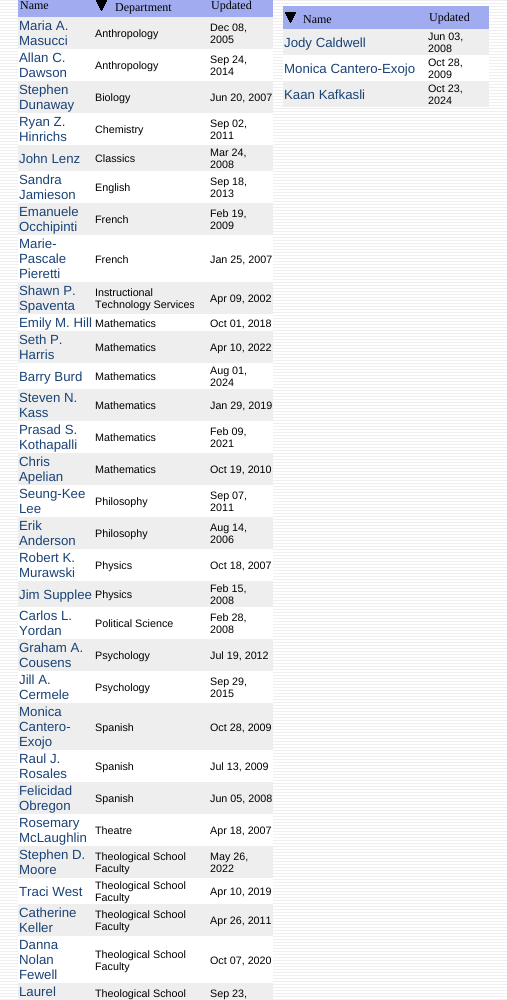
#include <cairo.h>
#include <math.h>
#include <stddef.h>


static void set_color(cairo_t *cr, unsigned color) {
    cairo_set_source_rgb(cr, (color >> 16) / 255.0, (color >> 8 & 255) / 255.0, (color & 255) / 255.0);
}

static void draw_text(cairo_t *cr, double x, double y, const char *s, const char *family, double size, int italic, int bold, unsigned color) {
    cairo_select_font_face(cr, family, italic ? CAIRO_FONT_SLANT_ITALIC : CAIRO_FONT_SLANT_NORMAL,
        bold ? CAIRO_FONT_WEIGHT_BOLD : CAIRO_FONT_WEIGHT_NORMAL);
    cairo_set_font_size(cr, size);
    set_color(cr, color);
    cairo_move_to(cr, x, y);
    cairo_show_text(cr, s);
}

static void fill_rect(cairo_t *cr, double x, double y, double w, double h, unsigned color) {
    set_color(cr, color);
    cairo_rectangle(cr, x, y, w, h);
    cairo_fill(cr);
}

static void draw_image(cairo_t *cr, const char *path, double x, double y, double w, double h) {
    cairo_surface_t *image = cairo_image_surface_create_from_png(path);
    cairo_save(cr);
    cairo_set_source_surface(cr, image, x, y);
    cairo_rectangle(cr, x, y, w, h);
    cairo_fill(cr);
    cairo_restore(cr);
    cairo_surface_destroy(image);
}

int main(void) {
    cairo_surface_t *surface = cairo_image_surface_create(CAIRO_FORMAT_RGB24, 507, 1000);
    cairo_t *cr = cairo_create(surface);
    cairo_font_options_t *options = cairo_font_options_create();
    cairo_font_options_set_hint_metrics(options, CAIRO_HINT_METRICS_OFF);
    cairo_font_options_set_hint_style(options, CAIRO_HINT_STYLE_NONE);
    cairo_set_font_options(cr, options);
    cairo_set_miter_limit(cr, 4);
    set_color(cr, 0xFFFFFF);
    cairo_paint(cr);
    draw_image(cr, "assets/img1.png", 0, 0, 507, 1000);
    fill_rect(cr, 18, 0, 255, 17, 0xA0ACEF);
    draw_text(cr, 20, 9, "Name", "Liberation Serif", 12, 0, 0, 0x000000);
    draw_image(cr, "assets/img2.png", 96, 0, 11, 11);
    draw_text(cr, 115, 11, "Department", "Liberation Serif", 12, 0, 0, 0x000000);
    draw_text(cr, 211, 9, "Updated", "Liberation Serif", 12, 0, 0, 0x000000);
    fill_rect(cr, 18, 17, 255, 31, 0xEEEEEE);
    draw_text(cr, 19, 30, "Maria A.", "Liberation Sans", 13.25, 0, 0, 0x194275);
    draw_text(cr, 19, 45, "Masucci", "Liberation Sans", 13.25, 0, 0, 0x194275);
    draw_text(cr, 95, 37, "Anthropology", "Liberation Sans", 10.75, 0, 0, 0x000000);
    draw_text(cr, 210, 31, "Dec 08,", "Liberation Sans", 10.75, 0, 0, 0x000000);
    draw_text(cr, 210, 43, "2005", "Liberation Sans", 10.75, 0, 0, 0x000000);
    fill_rect(cr, 18, 51, 255, 28, 0xFFFFFF);
    draw_text(cr, 19, 62, "Allan C.", "Liberation Sans", 13.25, 0, 0, 0x194275);
    draw_text(cr, 19, 77, "Dawson", "Liberation Sans", 13.25, 0, 0, 0x194275);
    draw_text(cr, 95, 69, "Anthropology", "Liberation Sans", 10.75, 0, 0, 0x000000);
    draw_text(cr, 210, 63, "Sep 24,", "Liberation Sans", 10.75, 0, 0, 0x000000);
    draw_text(cr, 210, 75, "2014", "Liberation Sans", 10.75, 0, 0, 0x000000);
    fill_rect(cr, 18, 82, 255, 31, 0xEEEEEE);
    draw_text(cr, 19, 94, "Stephen", "Liberation Sans", 13.25, 0, 0, 0x194275);
    draw_text(cr, 19, 109, "Dunaway", "Liberation Sans", 13.25, 0, 0, 0x194275);
    draw_text(cr, 95, 101, "Biology", "Liberation Sans", 10.75, 0, 0, 0x000000);
    draw_text(cr, 210, 101, "Jun 20, 2007", "Liberation Sans", 10.75, 0, 0, 0x000000);
    fill_rect(cr, 18, 114, 255, 31, 0xFFFFFF);
    draw_text(cr, 19, 126, "Ryan Z.", "Liberation Sans", 13.25, 0, 0, 0x194275);
    draw_text(cr, 19, 141, "Hinrichs", "Liberation Sans", 13.25, 0, 0, 0x194275);
    draw_text(cr, 95, 133, "Chemistry", "Liberation Sans", 10.75, 0, 0, 0x000000);
    draw_text(cr, 210, 127, "Sep 02,", "Liberation Sans", 10.75, 0, 0, 0x000000);
    draw_text(cr, 210, 139, "2011", "Liberation Sans", 10.75, 0, 0, 0x000000);
    fill_rect(cr, 18, 145, 255, 26, 0xEEEEEE);
    draw_text(cr, 19, 163, "John Lenz", "Liberation Sans", 13.25, 0, 0, 0x194275);
    draw_text(cr, 95, 162, "Classics", "Liberation Sans", 10.75, 0, 0, 0x000000);
    draw_text(cr, 210, 156, "Mar 24,", "Liberation Sans", 10.75, 0, 0, 0x000000);
    draw_text(cr, 210, 168, "2008", "Liberation Sans", 10.75, 0, 0, 0x000000);
    fill_rect(cr, 18, 171, 255, 31, 0xFFFFFF);
    draw_text(cr, 19, 184, "Sandra", "Liberation Sans", 13.25, 0, 0, 0x194275);
    draw_text(cr, 19, 199, "Jamieson", "Liberation Sans", 13.25, 0, 0, 0x194275);
    draw_text(cr, 95, 191, "English", "Liberation Sans", 10.75, 0, 0, 0x000000);
    draw_text(cr, 210, 185, "Sep 18,", "Liberation Sans", 10.75, 0, 0, 0x000000);
    draw_text(cr, 210, 197, "2013", "Liberation Sans", 10.75, 0, 0, 0x000000);
    fill_rect(cr, 18, 203, 255, 31, 0xEEEEEE);
    draw_text(cr, 19, 216, "Emanuele", "Liberation Sans", 13.25, 0, 0, 0x194275);
    draw_text(cr, 19, 231, "Occhipinti", "Liberation Sans", 13.25, 0, 0, 0x194275);
    draw_text(cr, 95, 223, "French", "Liberation Sans", 10.75, 0, 0, 0x000000);
    draw_text(cr, 210, 217, "Feb 19,", "Liberation Sans", 10.75, 0, 0, 0x000000);
    draw_text(cr, 210, 229, "2009", "Liberation Sans", 10.75, 0, 0, 0x000000);
    fill_rect(cr, 18, 237, 255, 43, 0xFFFFFF);
    draw_text(cr, 19, 248, "Marie-", "Liberation Sans", 13.25, 0, 0, 0x194275);
    draw_text(cr, 19, 263, "Pascale", "Liberation Sans", 13.25, 0, 0, 0x194275);
    draw_text(cr, 19, 278, "Pieretti", "Liberation Sans", 13.25, 0, 0, 0x194275);
    draw_text(cr, 95, 263, "French", "Liberation Sans", 10.75, 0, 0, 0x000000);
    draw_text(cr, 210, 263, "Jan 25, 2007", "Liberation Sans", 10.75, 0, 0, 0x000000);
    fill_rect(cr, 18, 283, 255, 31, 0xEEEEEE);
    draw_text(cr, 19, 295, "Shawn P.", "Liberation Sans", 13.25, 0, 0, 0x194275);
    draw_text(cr, 19, 310, "Spaventa", "Liberation Sans", 13.25, 0, 0, 0x194275);
    draw_text(cr, 95, 296, "Instructional", "Liberation Sans", 10.75, 0, 0, 0x000000);
    draw_text(cr, 95, 308, "Technology Services", "Liberation Sans", 10.75, 0, 0, 0x000000);
    draw_text(cr, 210, 302, "Apr 09, 2002", "Liberation Sans", 10.75, 0, 0, 0x000000);
    fill_rect(cr, 18, 315, 255, 16, 0xFFFFFF);
    draw_text(cr, 19, 327, "Emily M. Hill", "Liberation Sans", 13.25, 0, 0, 0x194275);
    draw_text(cr, 95, 327, "Mathematics", "Liberation Sans", 10.75, 0, 0, 0x000000);
    draw_text(cr, 210, 327, "Oct 01, 2018", "Liberation Sans", 10.75, 0, 0, 0x000000);
    fill_rect(cr, 18, 331, 255, 32, 0xEEEEEE);
    draw_text(cr, 19, 344, "Seth P.", "Liberation Sans", 13.25, 0, 0, 0x194275);
    draw_text(cr, 19, 359, "Harris", "Liberation Sans", 13.25, 0, 0, 0x194275);
    draw_text(cr, 95, 351, "Mathematics", "Liberation Sans", 10.75, 0, 0, 0x000000);
    draw_text(cr, 210, 351, "Apr 10, 2022", "Liberation Sans", 10.75, 0, 0, 0x000000);
    fill_rect(cr, 18, 363, 255, 25, 0xFFFFFF);
    draw_text(cr, 19, 381, "Barry Burd", "Liberation Sans", 13.25, 0, 0, 0x194275);
    draw_text(cr, 95, 380, "Mathematics", "Liberation Sans", 10.75, 0, 0, 0x000000);
    draw_text(cr, 210, 374, "Aug 01,", "Liberation Sans", 10.75, 0, 0, 0x000000);
    draw_text(cr, 210, 386, "2024", "Liberation Sans", 10.75, 0, 0, 0x000000);
    fill_rect(cr, 18, 389, 255, 31, 0xEEEEEE);
    draw_text(cr, 19, 402, "Steven N.", "Liberation Sans", 13.25, 0, 0, 0x194275);
    draw_text(cr, 19, 417, "Kass", "Liberation Sans", 13.25, 0, 0, 0x194275);
    draw_text(cr, 95, 409, "Mathematics", "Liberation Sans", 10.75, 0, 0, 0x000000);
    draw_text(cr, 210, 409, "Jan 29, 2019", "Liberation Sans", 10.75, 0, 0, 0x000000);
    fill_rect(cr, 18, 423, 255, 28, 0xFFFFFF);
    draw_text(cr, 19, 434, "Prasad S.", "Liberation Sans", 13.25, 0, 0, 0x194275);
    draw_text(cr, 19, 449, "Kothapalli", "Liberation Sans", 13.25, 0, 0, 0x194275);
    draw_text(cr, 95, 441, "Mathematics", "Liberation Sans", 10.75, 0, 0, 0x000000);
    draw_text(cr, 210, 435, "Feb 09,", "Liberation Sans", 10.75, 0, 0, 0x000000);
    draw_text(cr, 210, 447, "2021", "Liberation Sans", 10.75, 0, 0, 0x000000);
    fill_rect(cr, 18, 454, 255, 31, 0xEEEEEE);
    draw_text(cr, 19, 466, "Chris", "Liberation Sans", 13.25, 0, 0, 0x194275);
    draw_text(cr, 19, 481, "Apelian", "Liberation Sans", 13.25, 0, 0, 0x194275);
    draw_text(cr, 95, 473, "Mathematics", "Liberation Sans", 10.75, 0, 0, 0x000000);
    draw_text(cr, 210, 473, "Oct 19, 2010", "Liberation Sans", 10.75, 0, 0, 0x000000);
    fill_rect(cr, 18, 486, 255, 31, 0xFFFFFF);
    draw_text(cr, 19, 498, "Seung-Kee", "Liberation Sans", 13.25, 0, 0, 0x194275);
    draw_text(cr, 19, 513, "Lee", "Liberation Sans", 13.25, 0, 0, 0x194275);
    draw_text(cr, 95, 505, "Philosophy", "Liberation Sans", 10.75, 0, 0, 0x000000);
    draw_text(cr, 210, 499, "Sep 07,", "Liberation Sans", 10.75, 0, 0, 0x000000);
    draw_text(cr, 210, 511, "2011", "Liberation Sans", 10.75, 0, 0, 0x000000);
    fill_rect(cr, 18, 517, 255, 32, 0xEEEEEE);
    draw_text(cr, 19, 530, "Erik", "Liberation Sans", 13.25, 0, 0, 0x194275);
    draw_text(cr, 19, 545, "Anderson", "Liberation Sans", 13.25, 0, 0, 0x194275);
    draw_text(cr, 95, 537, "Philosophy", "Liberation Sans", 10.75, 0, 0, 0x000000);
    draw_text(cr, 210, 531, "Aug 14,", "Liberation Sans", 10.75, 0, 0, 0x000000);
    draw_text(cr, 210, 543, "2006", "Liberation Sans", 10.75, 0, 0, 0x000000);
    fill_rect(cr, 18, 549, 255, 31, 0xFFFFFF);
    draw_text(cr, 19, 562, "Robert K.", "Liberation Sans", 13.25, 0, 0, 0x194275);
    draw_text(cr, 19, 577, "Murawski", "Liberation Sans", 13.25, 0, 0, 0x194275);
    draw_text(cr, 95, 569, "Physics", "Liberation Sans", 10.75, 0, 0, 0x000000);
    draw_text(cr, 210, 569, "Oct 18, 2007", "Liberation Sans", 10.75, 0, 0, 0x000000);
    fill_rect(cr, 18, 581, 255, 25, 0xEEEEEE);
    draw_text(cr, 19, 599, "Jim Supplee", "Liberation Sans", 13.25, 0, 0, 0x194275);
    draw_text(cr, 95, 598, "Physics", "Liberation Sans", 10.75, 0, 0, 0x000000);
    draw_text(cr, 210, 592, "Feb 15,", "Liberation Sans", 10.75, 0, 0, 0x000000);
    draw_text(cr, 210, 604, "2008", "Liberation Sans", 10.75, 0, 0, 0x000000);
    fill_rect(cr, 18, 609, 255, 28, 0xFFFFFF);
    draw_text(cr, 19, 620, "Carlos L.", "Liberation Sans", 13.25, 0, 0, 0x194275);
    draw_text(cr, 19, 635, "Yordan", "Liberation Sans", 13.25, 0, 0, 0x194275);
    draw_text(cr, 95, 627, "Political Science", "Liberation Sans", 10.75, 0, 0, 0x000000);
    draw_text(cr, 210, 621, "Feb 28,", "Liberation Sans", 10.75, 0, 0, 0x000000);
    draw_text(cr, 210, 633, "2008", "Liberation Sans", 10.75, 0, 0, 0x000000);
    fill_rect(cr, 18, 640, 255, 31, 0xEEEEEE);
    draw_text(cr, 19, 652, "Graham A.", "Liberation Sans", 13.25, 0, 0, 0x194275);
    draw_text(cr, 19, 667, "Cousens", "Liberation Sans", 13.25, 0, 0, 0x194275);
    draw_text(cr, 95, 659, "Psychology", "Liberation Sans", 10.75, 0, 0, 0x000000);
    draw_text(cr, 210, 659, "Jul 19, 2012", "Liberation Sans", 10.75, 0, 0, 0x000000);
    fill_rect(cr, 18, 672, 255, 31, 0xFFFFFF);
    draw_text(cr, 19, 684, "Jill A.", "Liberation Sans", 13.25, 0, 0, 0x194275);
    draw_text(cr, 19, 699, "Cermele", "Liberation Sans", 13.25, 0, 0, 0x194275);
    draw_text(cr, 95, 691, "Psychology", "Liberation Sans", 10.75, 0, 0, 0x000000);
    draw_text(cr, 210, 685, "Sep 29,", "Liberation Sans", 10.75, 0, 0, 0x000000);
    draw_text(cr, 210, 697, "2015", "Liberation Sans", 10.75, 0, 0, 0x000000);
    fill_rect(cr, 18, 703, 255, 47, 0xEEEEEE);
    draw_text(cr, 19, 716, "Monica", "Liberation Sans", 13.25, 0, 0, 0x194275);
    draw_text(cr, 19, 731, "Cantero-", "Liberation Sans", 13.25, 0, 0, 0x194275);
    draw_text(cr, 19, 746, "Exojo", "Liberation Sans", 13.25, 0, 0, 0x194275);
    draw_text(cr, 95, 731, "Spanish", "Liberation Sans", 10.75, 0, 0, 0x000000);
    draw_text(cr, 210, 731, "Oct 28, 2009", "Liberation Sans", 10.75, 0, 0, 0x000000);
    fill_rect(cr, 18, 750, 255, 31, 0xFFFFFF);
    draw_text(cr, 19, 763, "Raul J.", "Liberation Sans", 13.25, 0, 0, 0x194275);
    draw_text(cr, 19, 778, "Rosales", "Liberation Sans", 13.25, 0, 0, 0x194275);
    draw_text(cr, 95, 770, "Spanish", "Liberation Sans", 10.75, 0, 0, 0x000000);
    draw_text(cr, 210, 770, "Jul 13, 2009", "Liberation Sans", 10.75, 0, 0, 0x000000);
    fill_rect(cr, 18, 782, 255, 31, 0xEEEEEE);
    draw_text(cr, 19, 795, "Felicidad", "Liberation Sans", 13.25, 0, 0, 0x194275);
    draw_text(cr, 19, 810, "Obregon", "Liberation Sans", 13.25, 0, 0, 0x194275);
    draw_text(cr, 95, 802, "Spanish", "Liberation Sans", 10.75, 0, 0, 0x000000);
    draw_text(cr, 210, 802, "Jun 05, 2008", "Liberation Sans", 10.75, 0, 0, 0x000000);
    fill_rect(cr, 18, 816, 255, 28, 0xFFFFFF);
    draw_text(cr, 19, 827, "Rosemary", "Liberation Sans", 13.25, 0, 0, 0x194275);
    draw_text(cr, 19, 842, "McLaughlin", "Liberation Sans", 13.25, 0, 0, 0x194275);
    draw_text(cr, 95, 834, "Theatre", "Liberation Sans", 10.75, 0, 0, 0x000000);
    draw_text(cr, 210, 834, "Apr 18, 2007", "Liberation Sans", 10.75, 0, 0, 0x000000);
    fill_rect(cr, 18, 847, 255, 31, 0xEEEEEE);
    draw_text(cr, 19, 859, "Stephen D.", "Liberation Sans", 13.25, 0, 0, 0x194275);
    draw_text(cr, 19, 874, "Moore", "Liberation Sans", 13.25, 0, 0, 0x194275);
    draw_text(cr, 95, 860, "Theological School", "Liberation Sans", 10.75, 0, 0, 0x000000);
    draw_text(cr, 95, 872, "Faculty", "Liberation Sans", 10.75, 0, 0, 0x000000);
    draw_text(cr, 210, 860, "May 26,", "Liberation Sans", 10.75, 0, 0, 0x000000);
    draw_text(cr, 210, 872, "2022", "Liberation Sans", 10.75, 0, 0, 0x000000);
    fill_rect(cr, 18, 879, 255, 25, 0xFFFFFF);
    draw_text(cr, 19, 896, "Traci West", "Liberation Sans", 13.25, 0, 0, 0x194275);
    draw_text(cr, 95, 889, "Theological School", "Liberation Sans", 10.75, 0, 0, 0x000000);
    draw_text(cr, 95, 901, "Faculty", "Liberation Sans", 10.75, 0, 0, 0x000000);
    draw_text(cr, 210, 895, "Apr 10, 2019", "Liberation Sans", 10.75, 0, 0, 0x000000);
    fill_rect(cr, 18, 904, 255, 32, 0xEEEEEE);
    draw_text(cr, 19, 917, "Catherine", "Liberation Sans", 13.25, 0, 0, 0x194275);
    draw_text(cr, 19, 932, "Keller", "Liberation Sans", 13.25, 0, 0, 0x194275);
    draw_text(cr, 95, 918, "Theological School", "Liberation Sans", 10.75, 0, 0, 0x000000);
    draw_text(cr, 95, 930, "Faculty", "Liberation Sans", 10.75, 0, 0, 0x000000);
    draw_text(cr, 210, 924, "Apr 26, 2011", "Liberation Sans", 10.75, 0, 0, 0x000000);
    fill_rect(cr, 18, 936, 255, 46, 0xFFFFFF);
    draw_text(cr, 19, 949, "Danna", "Liberation Sans", 13.25, 0, 0, 0x194275);
    draw_text(cr, 19, 964, "Nolan", "Liberation Sans", 13.25, 0, 0, 0x194275);
    draw_text(cr, 19, 979, "Fewell", "Liberation Sans", 13.25, 0, 0, 0x194275);
    draw_text(cr, 95, 958, "Theological School", "Liberation Sans", 10.75, 0, 0, 0x000000);
    draw_text(cr, 95, 970, "Faculty", "Liberation Sans", 10.75, 0, 0, 0x000000);
    draw_text(cr, 210, 964, "Oct 07, 2020", "Liberation Sans", 10.75, 0, 0, 0x000000);
    fill_rect(cr, 18, 983, 255, 16, 0xEEEEEE);
    draw_text(cr, 19, 996, "Laurel", "Liberation Sans", 13.25, 0, 0, 0x194275);
    draw_text(cr, 95, 997, "Theological School", "Liberation Sans", 10.75, 0, 0, 0x000000);
    draw_text(cr, 210, 997, "Sep 23,", "Liberation Sans", 10.75, 0, 0, 0x000000);
    fill_rect(cr, 283, 6, 206, 23, 0xA0ACEF);
    draw_image(cr, "assets/img2.png", 285, 12, 11, 11);
    draw_text(cr, 303, 23, "Name", "Liberation Serif", 12, 0, 0, 0x000000);
    draw_text(cr, 429, 21, "Updated", "Liberation Serif", 12, 0, 0, 0x000000);
    fill_rect(cr, 283, 29, 206, 25, 0xEEEEEE);
    draw_text(cr, 284, 47, "Jody Caldwell", "Liberation Sans", 13.25, 0, 0, 0x194275);
    draw_text(cr, 428, 40, "Jun 03,", "Liberation Sans", 10.75, 0, 0, 0x000000);
    draw_text(cr, 428, 52, "2008", "Liberation Sans", 10.75, 0, 0, 0x000000);
    fill_rect(cr, 283, 57, 206, 22, 0xFFFFFF);
    draw_text(cr, 284, 73, "Monica Cantero-Exojo", "Liberation Sans", 13.25, 0, 0, 0x194275);
    draw_text(cr, 428, 66, "Oct 28,", "Liberation Sans", 10.75, 0, 0, 0x000000);
    draw_text(cr, 428, 78, "2009", "Liberation Sans", 10.75, 0, 0, 0x000000);
    fill_rect(cr, 283, 82, 206, 25, 0xEEEEEE);
    draw_text(cr, 284, 99, "Kaan Kafkasli", "Liberation Sans", 13.25, 0, 0, 0x194275);
    draw_text(cr, 428, 92, "Oct 23,", "Liberation Sans", 10.75, 0, 0, 0x000000);
    draw_text(cr, 428, 104, "2024", "Liberation Sans", 10.75, 0, 0, 0x000000);
    cairo_surface_write_to_png(surface, "output.png");
    cairo_font_options_destroy(options);
    cairo_destroy(cr);
    cairo_surface_destroy(surface);
    return 0;
}
